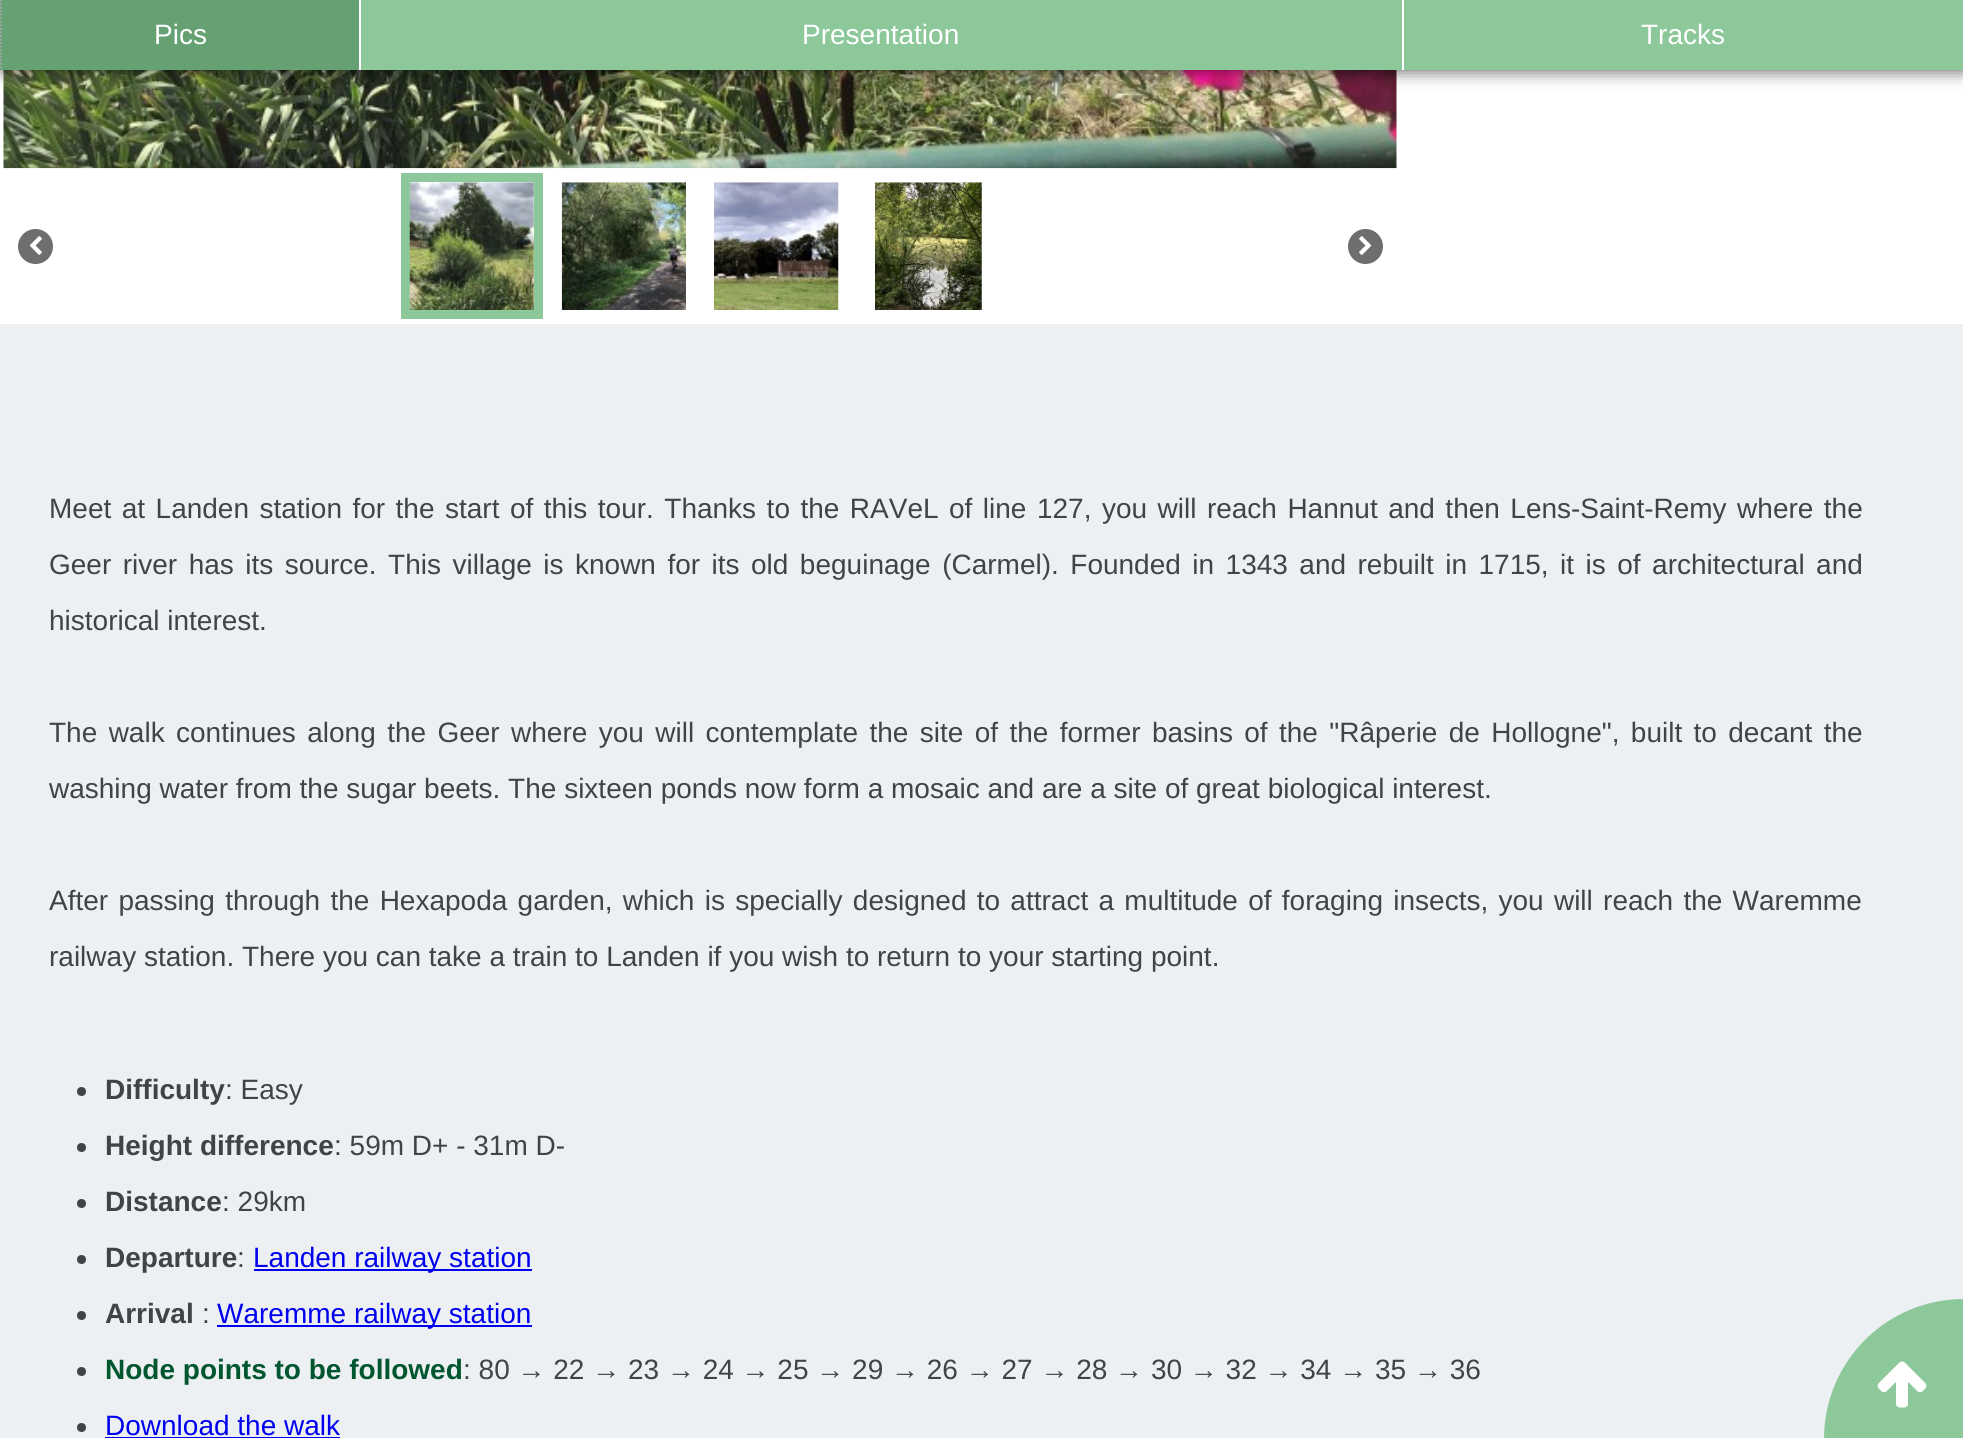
#include <cairo.h>
#include <math.h>
#include <stddef.h>


static void set_color(cairo_t *cr, unsigned color) {
    cairo_set_source_rgb(cr, (color >> 16) / 255.0, (color >> 8 & 255) / 255.0, (color & 255) / 255.0);
}

static void draw_text(cairo_t *cr, double x, double y, const char *s, const char *family, double size, int italic, int bold, unsigned color) {
    cairo_select_font_face(cr, family, italic ? CAIRO_FONT_SLANT_ITALIC : CAIRO_FONT_SLANT_NORMAL,
        bold ? CAIRO_FONT_WEIGHT_BOLD : CAIRO_FONT_WEIGHT_NORMAL);
    cairo_set_font_size(cr, size);
    set_color(cr, color);
    cairo_move_to(cr, x, y);
    cairo_show_text(cr, s);
}

static void draw_spaced(cairo_t *cr, double x, double y, const char *s, double letter, double word) {
    cairo_move_to(cr, x, y);
    while (*s) {
        char ch[5] = {0};
        int n = 0;
        do ch[n++] = *s++; while ((*s & 0xC0) == 0x80);
        cairo_show_text(cr, ch);
        cairo_rel_move_to(cr, letter + word * (*ch == ' '), 0);
    }
}

static void fill_rect(cairo_t *cr, double x, double y, double w, double h, unsigned color) {
    set_color(cr, color);
    cairo_rectangle(cr, x, y, w, h);
    cairo_fill(cr);
}

static void rounded_rect(cairo_t *cr, double x, double y, double w, double h, double r) {
    cairo_new_sub_path(cr);
    cairo_arc(cr, x + w - r, y + h - r, r, 0, M_PI / 2);
    cairo_arc(cr, x + r, y + h - r, r, M_PI / 2, M_PI);
    cairo_arc(cr, x + r, y + r, r, M_PI, 1.5 * M_PI);
    cairo_arc(cr, x + w - r, y + r, r, 1.5 * M_PI, 2 * M_PI);
    cairo_close_path(cr);
}

static void draw_shadow(cairo_t *cr, double x, double y, double w, double h, double r, double blur, double alpha) {
    cairo_push_group_with_content(cr, CAIRO_CONTENT_ALPHA);
    cairo_set_operator(cr, CAIRO_OPERATOR_SOURCE);
    for (int i = 15; i >= -15 && fmin(w, h) + blur * i / 3 > 0; i -= 2) {
        double e = blur * i / 6;
        cairo_set_source_rgba(cr, 0, 0, 0, alpha * erfc((i - 1) / 8.5) / 2);
        rounded_rect(cr, x - e, y - e, w + 2 * e, h + 2 * e, fmax(0, fmin(r + e + blur * .6, fmin(w, h) / 2 + e)));
        cairo_fill(cr);
    }
    cairo_pattern_t *soft = cairo_pop_group(cr);
    cairo_mask(cr, soft);
    cairo_pattern_destroy(soft);
}

static void draw_image(cairo_t *cr, const char *path, double x, double y, double w, double h) {
    cairo_surface_t *image = cairo_image_surface_create_from_png(path);
    cairo_save(cr);
    cairo_set_source_surface(cr, image, x, y);
    cairo_rectangle(cr, x, y, w, h);
    cairo_fill(cr);
    cairo_restore(cr);
    cairo_surface_destroy(image);
}

int main(void) {
    cairo_surface_t *surface = cairo_image_surface_create(CAIRO_FORMAT_RGB24, 1963, 1438);
    cairo_t *cr = cairo_create(surface);
    cairo_font_options_t *options = cairo_font_options_create();
    cairo_font_options_set_hint_metrics(options, CAIRO_HINT_METRICS_OFF);
    cairo_font_options_set_hint_style(options, CAIRO_HINT_STYLE_NONE);
    cairo_set_font_options(cr, options);
    cairo_set_miter_limit(cr, 4);
    set_color(cr, 0xEDF0F3);
    cairo_paint(cr);
    fill_rect(cr, 0, 70, 1963, 254, 0xFFFFFF);
    draw_image(cr, "assets/img1.png", 3, 70, 1394, 99);
    set_color(cr, 0x000000);
    draw_shadow(cr, 0, 0, 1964, 70, 0, 9, 0.7);
    fill_rect(cr, 361, 0, 1602, 70, 0x8DC89A);
    fill_rect(cr, 0, 0, 359, 70, 0x65A172);
    cairo_new_path(cr);
    cairo_move_to(cr, 1, 0);
    cairo_line_to(cr, 1, 70);
    set_color(cr, 0xA6A6A6);
    cairo_set_line_width(cr, 1.8);
    cairo_set_dash(cr, (double[]){1.75, 1.75}, 2, 0);
    cairo_stroke(cr);
    draw_text(cr, 154, 44, "Pics", "Liberation Sans", 28, 0, 0, 0xFFFFFF);
    fill_rect(cr, 359, 0, 2, 70, 0xFFFFFF);
    draw_text(cr, 802, 44, "Presentation", "Liberation Sans", 28, 0, 0, 0xFFFFFF);
    fill_rect(cr, 1402, 0, 2, 70, 0xFFFFFF);
    draw_text(cr, 1641, 44, "Tracks", "Liberation Sans", 28, 0, 0, 0xFFFFFF);
    set_color(cr, 0x6E6E6E);
    cairo_new_path(cr);
    cairo_arc(cr, 35.5, 246.5, 17.5, 0, 2 * M_PI);
    cairo_fill(cr);
    draw_image(cr, "assets/img2.png", 29, 236, 13, 19);
    cairo_rectangle(cr, 405.5, 177.5, 133, 137);
    set_color(cr, 0x8DC89A);
    cairo_set_line_width(cr, 9);
    cairo_set_dash(cr, NULL, 0, 0);
    cairo_stroke(cr);
    draw_image(cr, "assets/img3.png", 409, 182, 125, 128);
    draw_image(cr, "assets/img4.png", 561, 182, 125, 128);
    draw_image(cr, "assets/img5.png", 714, 182, 125, 128);
    draw_image(cr, "assets/img6.png", 875, 182, 107, 128);
    set_color(cr, 0x6E6E6E);
    cairo_arc(cr, 1365.5, 246.5, 17.5, 0, 2 * M_PI);
    cairo_fill(cr);
    draw_image(cr, "assets/img7.png", 1359, 236, 13, 19);
    set_color(cr, 0x404447);
    draw_spaced(cr, 49, 518, "Meet at Landen station for the start of this tour. Thanks to the RAVeL of line 127, you will reach Hannut and then Lens-Saint-Remy where the", 0, 2.7);
    draw_spaced(cr, 49, 574, "Geer river has its source. This village is known for its old beguinage (Carmel). Founded in 1343 and rebuilt in 1715, it is of architectural and", 0, 3.7);
    draw_text(cr, 49, 630, "historical interest.", "Liberation Sans", 28, 0, 0, 0x404447);
    draw_spaced(cr, 49, 742, "The walk continues along the Geer where you will contemplate the site of the former basins of the \"Râperie de Hollogne\", built to decant the", 0, 3.6);
    draw_text(cr, 49, 798, "washing water from the sugar beets. The sixteen ponds now form a mosaic and are a site of great biological interest.", "Liberation Sans", 28, 0, 0, 0x404447);
    draw_spaced(cr, 49, 910, "After passing through the Hexapoda garden, which is specially designed to attract a multitude of foraging insects, you will reach the Waremme", 0, 2.5);
    draw_text(cr, 49, 966, "railway station. There you can take a train to Landen if you wish to return to your starting point.", "Liberation Sans", 28, 0, 0, 0x404447);
    cairo_new_path(cr);
    cairo_arc(cr, 81.5, 1091.5, 4.5, 0, 2 * M_PI);
    cairo_fill(cr);
    draw_text(cr, 105, 1099, "Difficulty", "Liberation Sans", 28, 0, 1, 0x404447);
    draw_text(cr, 225, 1099, ": Easy", "Liberation Sans", 28, 0, 0, 0x404447);
    cairo_new_path(cr);
    cairo_arc(cr, 81.5, 1147.5, 4.5, 0, 2 * M_PI);
    cairo_fill(cr);
    draw_text(cr, 105, 1155, "Height difference", "Liberation Sans", 28, 0, 1, 0x404447);
    draw_text(cr, 334, 1155, ": 59m D+ - 31m D-", "Liberation Sans", 28, 0, 0, 0x404447);
    cairo_new_path(cr);
    cairo_arc(cr, 81.5, 1203.5, 4.5, 0, 2 * M_PI);
    cairo_fill(cr);
    draw_text(cr, 105, 1211, "Distance", "Liberation Sans", 28, 0, 1, 0x404447);
    draw_text(cr, 222, 1211, ": 29km", "Liberation Sans", 28, 0, 0, 0x404447);
    cairo_new_path(cr);
    cairo_arc(cr, 81.5, 1259.5, 4.5, 0, 2 * M_PI);
    cairo_fill(cr);
    draw_text(cr, 105, 1267, "Departure", "Liberation Sans", 28, 0, 1, 0x404447);
    draw_text(cr, 237, 1267, ":", "Liberation Sans", 28, 0, 0, 0x404447);
    fill_rect(cr, 254, 1269, 278, 2, 0x0000EE);
    draw_text(cr, 253, 1267, "Landen railway station", "Liberation Sans", 28, 0, 0, 0x0000EE);
    set_color(cr, 0x404447);
    cairo_new_path(cr);
    cairo_arc(cr, 81.5, 1315.5, 4.5, 0, 2 * M_PI);
    cairo_fill(cr);
    draw_text(cr, 105, 1323, "Arrival", "Liberation Sans", 28, 0, 1, 0x404447);
    draw_text(cr, 202, 1323, ":", "Liberation Sans", 28, 0, 0, 0x404447);
    fill_rect(cr, 217, 1325, 315, 2, 0x0000EE);
    draw_text(cr, 217, 1323, "Waremme railway station", "Liberation Sans", 28, 0, 0, 0x0000EE);
    set_color(cr, 0x404447);
    cairo_new_path(cr);
    cairo_arc(cr, 81.5, 1371.5, 4.5, 0, 2 * M_PI);
    cairo_fill(cr);
    draw_text(cr, 105, 1379, "Node points to be followed", "Liberation Sans", 28, 0, 1, 0x00562F);
    draw_text(cr, 463, 1379, ": 80 → 22 → 23 → 24 → 25 → 29 → 26 → 27 → 28 → 30 → 32 → 34 → 35 → 36", "Liberation Sans", 28, 0, 0, 0x404447);
    cairo_new_path(cr);
    cairo_arc(cr, 81.5, 1427.5, 4.5, 0, 2 * M_PI);
    cairo_fill(cr);
    draw_text(cr, 105, 1435, "Download the walk", "Liberation Sans", 28, 0, 0, 0x0000EE);
    fill_rect(cr, 105, 1437, 235, 1, 0x0000EE);
    set_color(cr, 0x8DC89A);
    cairo_new_path(cr);
    cairo_move_to(cr, 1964, 1299);
    cairo_line_to(cr, 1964, 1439);
    cairo_line_to(cr, 1824, 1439);
    cairo_curve_to(cr, 1824, 1361.5, 1886.5, 1299, 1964, 1299);
    cairo_close_path(cr);
    cairo_fill(cr);
    draw_image(cr, "assets/img8.png", 1877, 1361, 50, 47);
    cairo_surface_write_to_png(surface, "output.png");
    cairo_font_options_destroy(options);
    cairo_destroy(cr);
    cairo_surface_destroy(surface);
    return 0;
}
